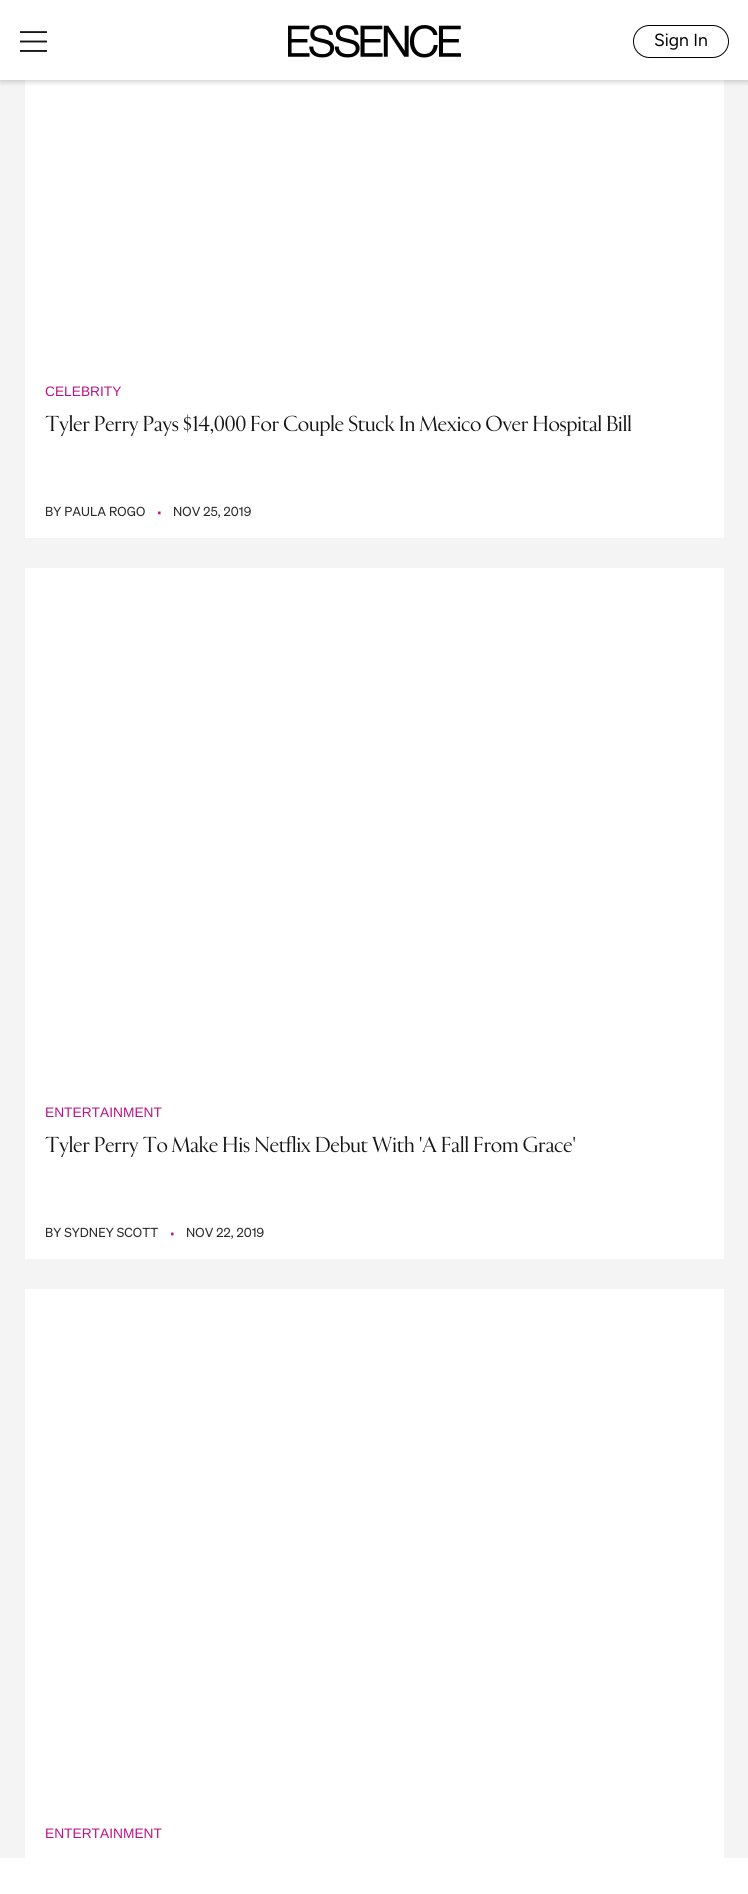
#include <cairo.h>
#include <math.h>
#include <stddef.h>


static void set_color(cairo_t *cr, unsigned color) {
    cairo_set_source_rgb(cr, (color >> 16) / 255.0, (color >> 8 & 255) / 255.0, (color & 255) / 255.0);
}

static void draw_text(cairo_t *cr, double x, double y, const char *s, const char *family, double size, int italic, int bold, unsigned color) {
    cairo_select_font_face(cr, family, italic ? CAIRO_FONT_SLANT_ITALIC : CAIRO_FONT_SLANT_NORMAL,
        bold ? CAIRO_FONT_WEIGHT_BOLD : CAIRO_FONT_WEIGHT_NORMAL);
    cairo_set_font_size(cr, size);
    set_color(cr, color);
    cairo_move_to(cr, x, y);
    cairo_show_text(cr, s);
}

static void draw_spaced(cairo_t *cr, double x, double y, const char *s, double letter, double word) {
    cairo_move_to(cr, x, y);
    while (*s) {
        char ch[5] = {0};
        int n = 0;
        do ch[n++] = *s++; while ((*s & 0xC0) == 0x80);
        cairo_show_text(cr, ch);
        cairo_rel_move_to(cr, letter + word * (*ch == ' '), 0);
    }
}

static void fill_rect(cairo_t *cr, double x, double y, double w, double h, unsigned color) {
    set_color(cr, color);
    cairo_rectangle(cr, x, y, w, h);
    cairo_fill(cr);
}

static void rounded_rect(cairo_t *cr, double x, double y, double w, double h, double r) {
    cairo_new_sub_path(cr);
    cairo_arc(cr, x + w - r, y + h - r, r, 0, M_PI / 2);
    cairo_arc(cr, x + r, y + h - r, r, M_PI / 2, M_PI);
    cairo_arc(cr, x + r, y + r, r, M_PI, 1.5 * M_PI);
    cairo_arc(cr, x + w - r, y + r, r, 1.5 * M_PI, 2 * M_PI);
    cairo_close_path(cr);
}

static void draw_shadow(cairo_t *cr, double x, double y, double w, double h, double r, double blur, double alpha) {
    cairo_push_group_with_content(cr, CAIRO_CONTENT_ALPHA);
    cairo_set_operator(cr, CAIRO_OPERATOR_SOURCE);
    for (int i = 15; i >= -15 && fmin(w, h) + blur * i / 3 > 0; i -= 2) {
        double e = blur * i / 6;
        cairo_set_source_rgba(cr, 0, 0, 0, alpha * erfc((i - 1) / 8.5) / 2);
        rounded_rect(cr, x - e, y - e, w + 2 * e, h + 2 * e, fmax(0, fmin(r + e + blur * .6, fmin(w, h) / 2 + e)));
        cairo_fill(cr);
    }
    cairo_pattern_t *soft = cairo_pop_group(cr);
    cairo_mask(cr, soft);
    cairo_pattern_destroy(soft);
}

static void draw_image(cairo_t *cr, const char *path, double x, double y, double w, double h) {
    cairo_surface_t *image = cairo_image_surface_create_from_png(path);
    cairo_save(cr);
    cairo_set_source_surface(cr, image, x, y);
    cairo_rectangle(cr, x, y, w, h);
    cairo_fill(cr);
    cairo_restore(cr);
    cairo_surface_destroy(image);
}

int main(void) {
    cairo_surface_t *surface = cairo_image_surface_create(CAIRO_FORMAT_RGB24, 748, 1894);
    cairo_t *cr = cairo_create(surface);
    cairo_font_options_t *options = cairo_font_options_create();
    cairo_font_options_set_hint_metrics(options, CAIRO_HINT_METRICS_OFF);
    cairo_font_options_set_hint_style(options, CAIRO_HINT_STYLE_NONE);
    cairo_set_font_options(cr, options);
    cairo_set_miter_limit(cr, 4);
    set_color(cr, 0xF4F4F4);
    cairo_paint(cr);
    fill_rect(cr, 25, 80, 699, 458, 0xFFFFFF);
    set_color(cr, 0x000000);
    draw_shadow(cr, 0, 0, 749, 80, 0, 3, 0.16);
    fill_rect(cr, 0, 0, 748, 80, 0xFFFFFF);
    cairo_save(cr);
    cairo_rectangle(cr, 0, 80, 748, 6);
    cairo_clip(cr);
    set_color(cr, 0x000000);
    draw_shadow(cr, 0, 1, 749, 80, 0, 5, 0.12);
    cairo_restore(cr);
    draw_image(cr, "assets/img1.png", 20, 31, 27, 21);
    draw_image(cr, "assets/img2.png", 288, 25, 173, 33);
    rounded_rect(cr, 633.5, 25.5, 95, 32, 16);
    set_color(cr, 0x000000);
    cairo_set_line_width(cr, 1);
    cairo_stroke(cr);
    draw_text(cr, 654, 46, "Sign In", "Figtree", 17.5, 0, 0, 0x000000);
    draw_text(cr, 45, 396, "CELEBRITY", "Liberation Sans", 13.75, 0, 0, 0xBD1187);
    cairo_select_font_face(cr, "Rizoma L", CAIRO_FONT_SLANT_NORMAL, CAIRO_FONT_WEIGHT_NORMAL);
    cairo_set_font_size(cr, 21.25);
    set_color(cr, 0x161616);
    draw_spaced(cr, 45, 431, "Tyler Perry Pays $14,000 For Couple Stuck In Mexico Over Hospital Bill", -0.43, 0);
    cairo_select_font_face(cr, "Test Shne", CAIRO_FONT_SLANT_NORMAL, CAIRO_FONT_WEIGHT_NORMAL);
    cairo_set_font_size(cr, 12.75);
    set_color(cr, 0x2B2B2B);
    draw_spaced(cr, 45, 516, "BY PAULA ROGO", 0.1, 0);
    cairo_select_font_face(cr, "Liberation Sans", CAIRO_FONT_SLANT_NORMAL, CAIRO_FONT_WEIGHT_NORMAL);
    cairo_set_font_size(cr, 26);
    set_color(cr, 0xBD1187);
    draw_spaced(cr, 155, 520, "·", 0.1, 0);
    cairo_select_font_face(cr, "Test Shne", CAIRO_FONT_SLANT_NORMAL, CAIRO_FONT_WEIGHT_NORMAL);
    cairo_set_font_size(cr, 12.75);
    set_color(cr, 0x2B2B2B);
    draw_spaced(cr, 173, 516, "NOV 25, 2019", 0.1, 0);
    fill_rect(cr, 25, 568, 699, 691, 0xFFFFFF);
    draw_text(cr, 45, 1117, "ENTERTAINMENT", "Liberation Sans", 13.75, 0, 0, 0xBD1187);
    cairo_select_font_face(cr, "Rizoma L", CAIRO_FONT_SLANT_NORMAL, CAIRO_FONT_WEIGHT_NORMAL);
    cairo_set_font_size(cr, 21.25);
    set_color(cr, 0x161616);
    draw_spaced(cr, 45, 1152, "Tyler Perry To Make His Netflix Debut With 'A Fall From Grace'", -0.43, 0);
    cairo_select_font_face(cr, "Test Shne", CAIRO_FONT_SLANT_NORMAL, CAIRO_FONT_WEIGHT_NORMAL);
    cairo_set_font_size(cr, 12.75);
    set_color(cr, 0x2B2B2B);
    draw_spaced(cr, 45, 1237, "BY SYDNEY SCOTT", 0.1, 0);
    cairo_select_font_face(cr, "Liberation Sans", CAIRO_FONT_SLANT_NORMAL, CAIRO_FONT_WEIGHT_NORMAL);
    cairo_set_font_size(cr, 26);
    set_color(cr, 0xBD1187);
    draw_spaced(cr, 168, 1241, "·", 0.1, 0);
    cairo_select_font_face(cr, "Test Shne", CAIRO_FONT_SLANT_NORMAL, CAIRO_FONT_WEIGHT_NORMAL);
    cairo_set_font_size(cr, 12.75);
    set_color(cr, 0x2B2B2B);
    draw_spaced(cr, 186, 1237, "NOV 22, 2019", 0.1, 0);
    fill_rect(cr, 25, 1289, 699, 569, 0xFFFFFF);
    draw_text(cr, 45, 1838, "ENTERTAINMENT", "Liberation Sans", 13.75, 0, 0, 0xBD1187);
    fill_rect(cr, 0, 1858, 748, 36, 0xFFFFFF);
    cairo_surface_write_to_png(surface, "output.png");
    cairo_font_options_destroy(options);
    cairo_destroy(cr);
    cairo_surface_destroy(surface);
    return 0;
}
